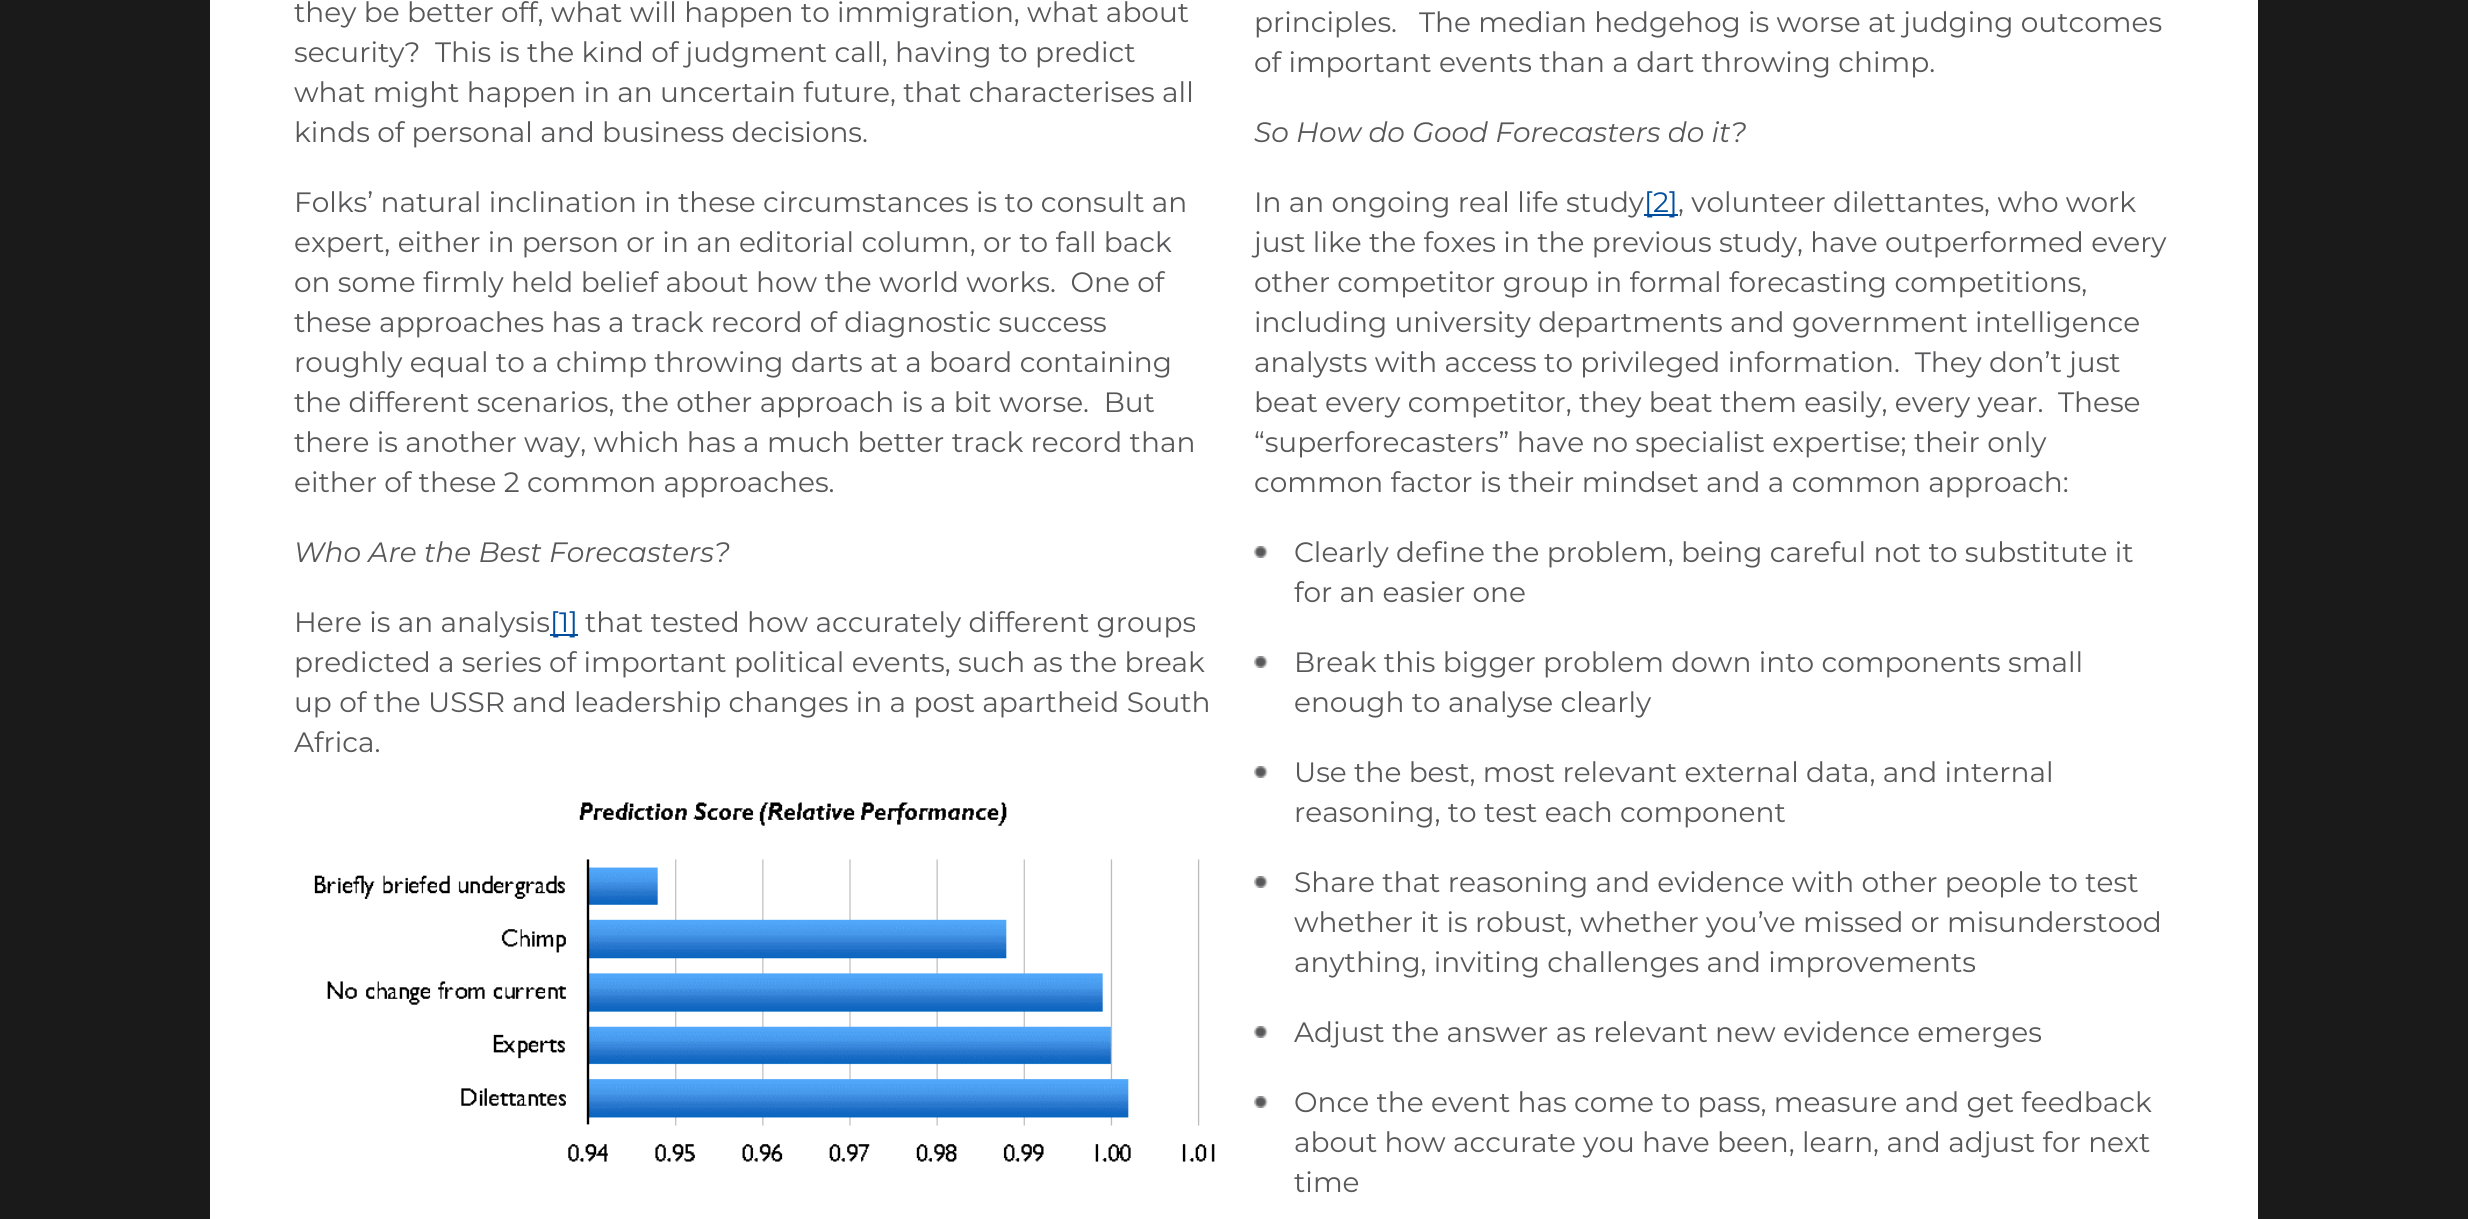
#include <cairo.h>
#include <math.h>
#include <stddef.h>


static void set_color(cairo_t *cr, unsigned color) {
    cairo_set_source_rgb(cr, (color >> 16) / 255.0, (color >> 8 & 255) / 255.0, (color & 255) / 255.0);
}

static void draw_text(cairo_t *cr, double x, double y, const char *s, const char *family, double size, int italic, int bold, unsigned color) {
    cairo_select_font_face(cr, family, italic ? CAIRO_FONT_SLANT_ITALIC : CAIRO_FONT_SLANT_NORMAL,
        bold ? CAIRO_FONT_WEIGHT_BOLD : CAIRO_FONT_WEIGHT_NORMAL);
    cairo_set_font_size(cr, size);
    set_color(cr, color);
    cairo_move_to(cr, x, y);
    cairo_show_text(cr, s);
}

static void fill_rect(cairo_t *cr, double x, double y, double w, double h, unsigned color) {
    set_color(cr, color);
    cairo_rectangle(cr, x, y, w, h);
    cairo_fill(cr);
}

static void draw_image(cairo_t *cr, const char *path, double x, double y, double w, double h) {
    cairo_surface_t *image = cairo_image_surface_create_from_png(path);
    cairo_save(cr);
    cairo_set_source_surface(cr, image, x, y);
    cairo_rectangle(cr, x, y, w, h);
    cairo_fill(cr);
    cairo_restore(cr);
    cairo_surface_destroy(image);
}

int main(void) {
    cairo_surface_t *surface = cairo_image_surface_create(CAIRO_FORMAT_RGB24, 2468, 1219);
    cairo_t *cr = cairo_create(surface);
    cairo_font_options_t *options = cairo_font_options_create();
    cairo_font_options_set_hint_metrics(options, CAIRO_HINT_METRICS_OFF);
    cairo_font_options_set_hint_style(options, CAIRO_HINT_STYLE_NONE);
    cairo_set_font_options(cr, options);
    cairo_set_miter_limit(cr, 4);
    set_color(cr, 0x1A1A1A);
    cairo_paint(cr);
    fill_rect(cr, 210, 0, 2048, 1219, 0xFFFFFF);
    draw_text(cr, 294, 22, "they be better off, what will happen to immigration, what about", "Montserrat", 28, 0, 0, 0x58585A);
    draw_text(cr, 294, 62, "security?  This is the kind of judgment call, having to predict", "Montserrat", 28, 0, 0, 0x58585A);
    draw_text(cr, 294, 102, "what might happen in an uncertain future, that characterises all", "Montserrat", 28, 0, 0, 0x58585A);
    draw_text(cr, 294, 142, "kinds of personal and business decisions.", "Montserrat", 28, 0, 0, 0x58585A);
    draw_text(cr, 1254, 32, "principles.   The median hedgehog is worse at judging outcomes", "Montserrat", 28, 0, 0, 0x58585A);
    draw_text(cr, 1254, 72, "of important events than a dart throwing chimp.", "Montserrat", 28, 0, 0, 0x58585A);
    draw_text(cr, 1254, 142, "So How do Good Forecasters do it?", "Montserrat", 28, 1, 0, 0x58585A);
    draw_text(cr, 294, 212, "Folks’ natural inclination in these circumstances is to consult an", "Montserrat", 28, 0, 0, 0x58585A);
    draw_text(cr, 294, 252, "expert, either in person or in an editorial column, or to fall back", "Montserrat", 28, 0, 0, 0x58585A);
    draw_text(cr, 294, 292, "on some firmly held belief about how the world works.  One of", "Montserrat", 28, 0, 0, 0x58585A);
    draw_text(cr, 294, 332, "these approaches has a track record of diagnostic success", "Montserrat", 28, 0, 0, 0x58585A);
    draw_text(cr, 294, 372, "roughly equal to a chimp throwing darts at a board containing", "Montserrat", 28, 0, 0, 0x58585A);
    draw_text(cr, 294, 412, "the different scenarios, the other approach is a bit worse.  But", "Montserrat", 28, 0, 0, 0x58585A);
    draw_text(cr, 294, 452, "there is another way, which has a much better track record than", "Montserrat", 28, 0, 0, 0x58585A);
    draw_text(cr, 294, 492, "either of these 2 common approaches.", "Montserrat", 28, 0, 0, 0x58585A);
    draw_text(cr, 1254, 212, "In an ongoing real life study", "Montserrat", 28, 0, 0, 0x58585A);
    fill_rect(cr, 1644, 214, 34, 2, 0x014E9E);
    draw_text(cr, 1644, 212, "[2]", "Montserrat", 28, 0, 0, 0x014E9E);
    draw_text(cr, 1678, 212, ", volunteer dilettantes, who work", "Montserrat", 28, 0, 0, 0x58585A);
    draw_text(cr, 1254, 252, "just like the foxes in the previous study, have outperformed every", "Montserrat", 28, 0, 0, 0x58585A);
    draw_text(cr, 1254, 292, "other competitor group in formal forecasting competitions,", "Montserrat", 28, 0, 0, 0x58585A);
    draw_text(cr, 1254, 332, "including university departments and government intelligence", "Montserrat", 28, 0, 0, 0x58585A);
    draw_text(cr, 1254, 372, "analysts with access to privileged information.  They don’t just", "Montserrat", 28, 0, 0, 0x58585A);
    draw_text(cr, 1254, 412, "beat every competitor, they beat them easily, every year.  These", "Montserrat", 28, 0, 0, 0x58585A);
    draw_text(cr, 1254, 452, "“superforecasters” have no specialist expertise; their only", "Montserrat", 28, 0, 0, 0x58585A);
    draw_text(cr, 1254, 492, "common factor is their mindset and a common approach:", "Montserrat", 28, 0, 0, 0x58585A);
    draw_text(cr, 294, 562, "Who Are the Best Forecasters?", "Montserrat", 28, 1, 0, 0x58585A);
    draw_image(cr, "assets/img1.png", 1254, 546, 14, 12);
    draw_text(cr, 1294, 562, "Clearly define the problem, being careful not to substitute it", "Montserrat", 28, 0, 0, 0x58585A);
    draw_text(cr, 1294, 602, "for an easier one", "Montserrat", 28, 0, 0, 0x58585A);
    draw_image(cr, "assets/img1.png", 1254, 656, 14, 12);
    draw_text(cr, 1294, 672, "Break this bigger problem down into components small", "Montserrat", 28, 0, 0, 0x58585A);
    draw_text(cr, 1294, 712, "enough to analyse clearly", "Montserrat", 28, 0, 0, 0x58585A);
    draw_image(cr, "assets/img1.png", 1254, 766, 14, 12);
    draw_text(cr, 1294, 782, "Use the best, most relevant external data, and internal", "Montserrat", 28, 0, 0, 0x58585A);
    draw_text(cr, 1294, 822, "reasoning, to test each component", "Montserrat", 28, 0, 0, 0x58585A);
    draw_image(cr, "assets/img1.png", 1254, 876, 14, 12);
    draw_text(cr, 1294, 892, "Share that reasoning and evidence with other people to test", "Montserrat", 28, 0, 0, 0x58585A);
    draw_text(cr, 1294, 932, "whether it is robust, whether you’ve missed or misunderstood", "Montserrat", 28, 0, 0, 0x58585A);
    draw_text(cr, 1294, 972, "anything, inviting challenges and improvements", "Montserrat", 28, 0, 0, 0x58585A);
    draw_image(cr, "assets/img1.png", 1254, 1026, 14, 12);
    draw_text(cr, 1294, 1042, "Adjust the answer as relevant new evidence emerges", "Montserrat", 28, 0, 0, 0x58585A);
    draw_image(cr, "assets/img1.png", 1254, 1096, 14, 12);
    draw_text(cr, 1294, 1112, "Once the event has come to pass, measure and get feedback", "Montserrat", 28, 0, 0, 0x58585A);
    draw_text(cr, 1294, 1152, "about how accurate you have been, learn, and adjust for next", "Montserrat", 28, 0, 0, 0x58585A);
    draw_text(cr, 1294, 1192, "time", "Montserrat", 28, 0, 0, 0x58585A);
    draw_text(cr, 294, 632, "Here is an analysis", "Montserrat", 28, 0, 0, 0x58585A);
    fill_rect(cr, 550, 634, 28, 2, 0x014E9E);
    draw_text(cr, 550, 632, "[1]", "Montserrat", 28, 0, 0, 0x014E9E);
    draw_text(cr, 585, 632, "that tested how accurately different groups", "Montserrat", 28, 0, 0, 0x58585A);
    draw_text(cr, 294, 672, "predicted a series of important political events, such as the break", "Montserrat", 28, 0, 0, 0x58585A);
    draw_text(cr, 294, 712, "up of the USSR and leadership changes in a post apartheid South", "Montserrat", 28, 0, 0, 0x58585A);
    draw_text(cr, 294, 752, "Africa.", "Montserrat", 28, 0, 0, 0x58585A);
    draw_image(cr, "assets/img2.png", 314, 802, 901, 360);
    cairo_surface_write_to_png(surface, "output.png");
    cairo_font_options_destroy(options);
    cairo_destroy(cr);
    cairo_surface_destroy(surface);
    return 0;
}
